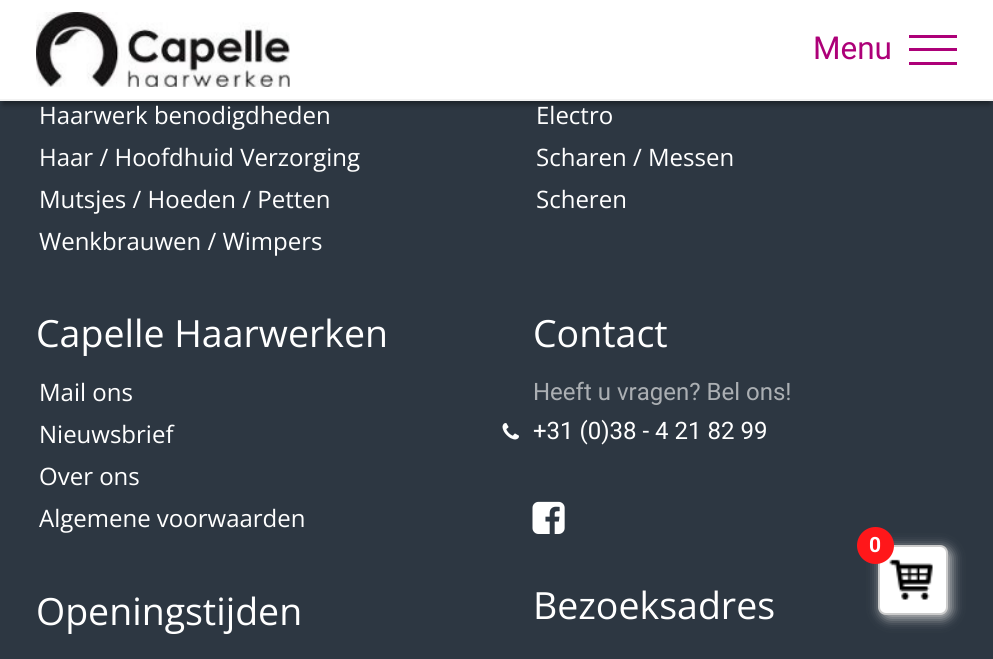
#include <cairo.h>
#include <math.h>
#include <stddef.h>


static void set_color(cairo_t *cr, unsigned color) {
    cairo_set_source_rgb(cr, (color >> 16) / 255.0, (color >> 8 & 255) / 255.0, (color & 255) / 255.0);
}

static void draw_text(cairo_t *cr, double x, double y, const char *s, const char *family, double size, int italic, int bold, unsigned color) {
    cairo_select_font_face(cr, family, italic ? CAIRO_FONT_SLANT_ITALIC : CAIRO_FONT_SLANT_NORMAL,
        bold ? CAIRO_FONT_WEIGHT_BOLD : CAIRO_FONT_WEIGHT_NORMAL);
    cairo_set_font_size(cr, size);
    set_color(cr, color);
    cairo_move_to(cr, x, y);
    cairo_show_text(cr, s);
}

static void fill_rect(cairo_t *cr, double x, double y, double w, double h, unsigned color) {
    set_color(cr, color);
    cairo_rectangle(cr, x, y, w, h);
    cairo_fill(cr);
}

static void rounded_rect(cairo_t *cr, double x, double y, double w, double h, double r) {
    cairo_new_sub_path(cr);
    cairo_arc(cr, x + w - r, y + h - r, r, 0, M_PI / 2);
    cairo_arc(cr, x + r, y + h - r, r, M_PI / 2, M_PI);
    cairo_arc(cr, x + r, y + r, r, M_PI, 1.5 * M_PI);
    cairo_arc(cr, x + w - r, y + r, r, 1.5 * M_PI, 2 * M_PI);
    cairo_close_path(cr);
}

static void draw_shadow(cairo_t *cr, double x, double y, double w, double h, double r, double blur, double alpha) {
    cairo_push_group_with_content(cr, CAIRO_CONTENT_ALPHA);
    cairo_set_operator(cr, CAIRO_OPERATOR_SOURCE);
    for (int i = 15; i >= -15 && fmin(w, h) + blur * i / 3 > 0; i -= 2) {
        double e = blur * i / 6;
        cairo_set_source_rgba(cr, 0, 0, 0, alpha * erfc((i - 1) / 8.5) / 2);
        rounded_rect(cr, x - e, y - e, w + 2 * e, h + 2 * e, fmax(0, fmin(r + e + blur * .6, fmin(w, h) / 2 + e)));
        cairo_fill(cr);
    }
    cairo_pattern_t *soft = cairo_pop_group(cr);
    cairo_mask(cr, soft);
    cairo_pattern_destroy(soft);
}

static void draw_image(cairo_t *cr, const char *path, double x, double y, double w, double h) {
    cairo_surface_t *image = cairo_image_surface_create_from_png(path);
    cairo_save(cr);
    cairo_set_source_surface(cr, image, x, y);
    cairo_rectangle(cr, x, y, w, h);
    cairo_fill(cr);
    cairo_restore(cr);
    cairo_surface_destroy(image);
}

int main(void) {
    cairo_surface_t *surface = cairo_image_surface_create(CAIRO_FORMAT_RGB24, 993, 659);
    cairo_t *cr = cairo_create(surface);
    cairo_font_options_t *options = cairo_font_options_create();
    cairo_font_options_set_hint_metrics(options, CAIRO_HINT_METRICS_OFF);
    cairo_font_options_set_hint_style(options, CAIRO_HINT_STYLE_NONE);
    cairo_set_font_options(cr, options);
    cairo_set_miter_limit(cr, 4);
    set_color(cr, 0x2D3742);
    cairo_paint(cr);
    set_color(cr, 0x000000);
    draw_shadow(cr, 3, 9, 987, 95, 0, 3, 0.42);
    fill_rect(cr, 0, 0, 993, 99, 0xFFFFFF);
    fill_rect(cr, 0, 99, 993, 2, 0xF2F2F2);
    draw_image(cr, "assets/img1.png", 36, 12, 254, 75);
    draw_text(cr, 813, 59, "Menu", "Roboto", 31.5, 0, 0, 0xAD0078);
    fill_rect(cr, 909, 48, 48, 3, 0xAD0078);
    fill_rect(cr, 909, 35, 48, 3, 0xAD0078);
    fill_rect(cr, 909, 62, 48, 3, 0xAD0078);
    draw_text(cr, 39, 124, "Haarwerk benodigdheden", "Open Sans", 24, 0, 0, 0xFFFFFF);
    draw_text(cr, 39, 166, "Haar / Hoofdhuid Verzorging", "Open Sans", 24, 0, 0, 0xFFFFFF);
    draw_text(cr, 39, 208, "Mutsjes / Hoeden / Petten", "Open Sans", 24, 0, 0, 0xFFFFFF);
    draw_text(cr, 39, 250, "Wenkbrauwen / Wimpers", "Open Sans", 24, 0, 0, 0xFFFFFF);
    draw_text(cr, 536, 124, "Electro", "Open Sans", 24, 0, 0, 0xFFFFFF);
    draw_text(cr, 536, 166, "Scharen / Messen", "Open Sans", 24, 0, 0, 0xFFFFFF);
    draw_text(cr, 536, 208, "Scheren", "Open Sans", 24, 0, 0, 0xFFFFFF);
    draw_text(cr, 36, 347, "Capelle Haarwerken", "Open Sans", 37.5, 0, 0, 0xFFFFFF);
    draw_text(cr, 39, 401, "Mail ons", "Open Sans", 24, 0, 0, 0xFFFFFF);
    draw_text(cr, 39, 443, "Nieuwsbrief", "Open Sans", 24, 0, 0, 0xFFFFFF);
    draw_text(cr, 39, 485, "Over ons", "Open Sans", 24, 0, 0, 0xFFFFFF);
    draw_text(cr, 39, 527, "Algemene voorwaarden", "Open Sans", 24, 0, 0, 0xFFFFFF);
    draw_text(cr, 36, 625, "Openingstijden", "Open Sans", 37.5, 0, 0, 0xFFFFFF);
    draw_text(cr, 533, 347, "Contact", "Open Sans", 37.5, 0, 0, 0xFFFFFF);
    draw_text(cr, 533, 400, "Heeft u vragen? Bel ons!", "Roboto", 24, 0, 0, 0xABAFB3);
    draw_image(cr, "assets/img2.png", 502, 423, 17, 17);
    draw_text(cr, 533, 439, "+31 (0)38 - 4 21 82 99", "Roboto", 24, 0, 0, 0xFFFFFF);
    draw_image(cr, "assets/img3.png", 532, 501, 33, 33);
    draw_text(cr, 533, 619, "Bezoeksadres", "Open Sans", 37.5, 0, 0, 0xFFFFFF);
    set_color(cr, 0xCCCCCC);
    draw_shadow(cr, 881, 548, 70, 70, 8, 6, 1);
    set_color(cr, 0xFFFFFF);
    rounded_rect(cr, 879, 546, 68, 68, 7);
    cairo_fill_preserve(cr);
    set_color(cr, 0xCCCCCC);
    cairo_stroke(cr);
    draw_image(cr, "assets/img4.png", 889, 559, 44, 41);
    set_color(cr, 0xFF171A);
    cairo_arc(cr, 875.5, 545.5, 18.5, 0, 2 * M_PI);
    cairo_fill(cr);
    draw_text(cr, 869, 552, "0", "Roboto", 21, 0, 1, 0xFFFFFF);
    cairo_surface_write_to_png(surface, "output.png");
    cairo_font_options_destroy(options);
    cairo_destroy(cr);
    cairo_surface_destroy(surface);
    return 0;
}
